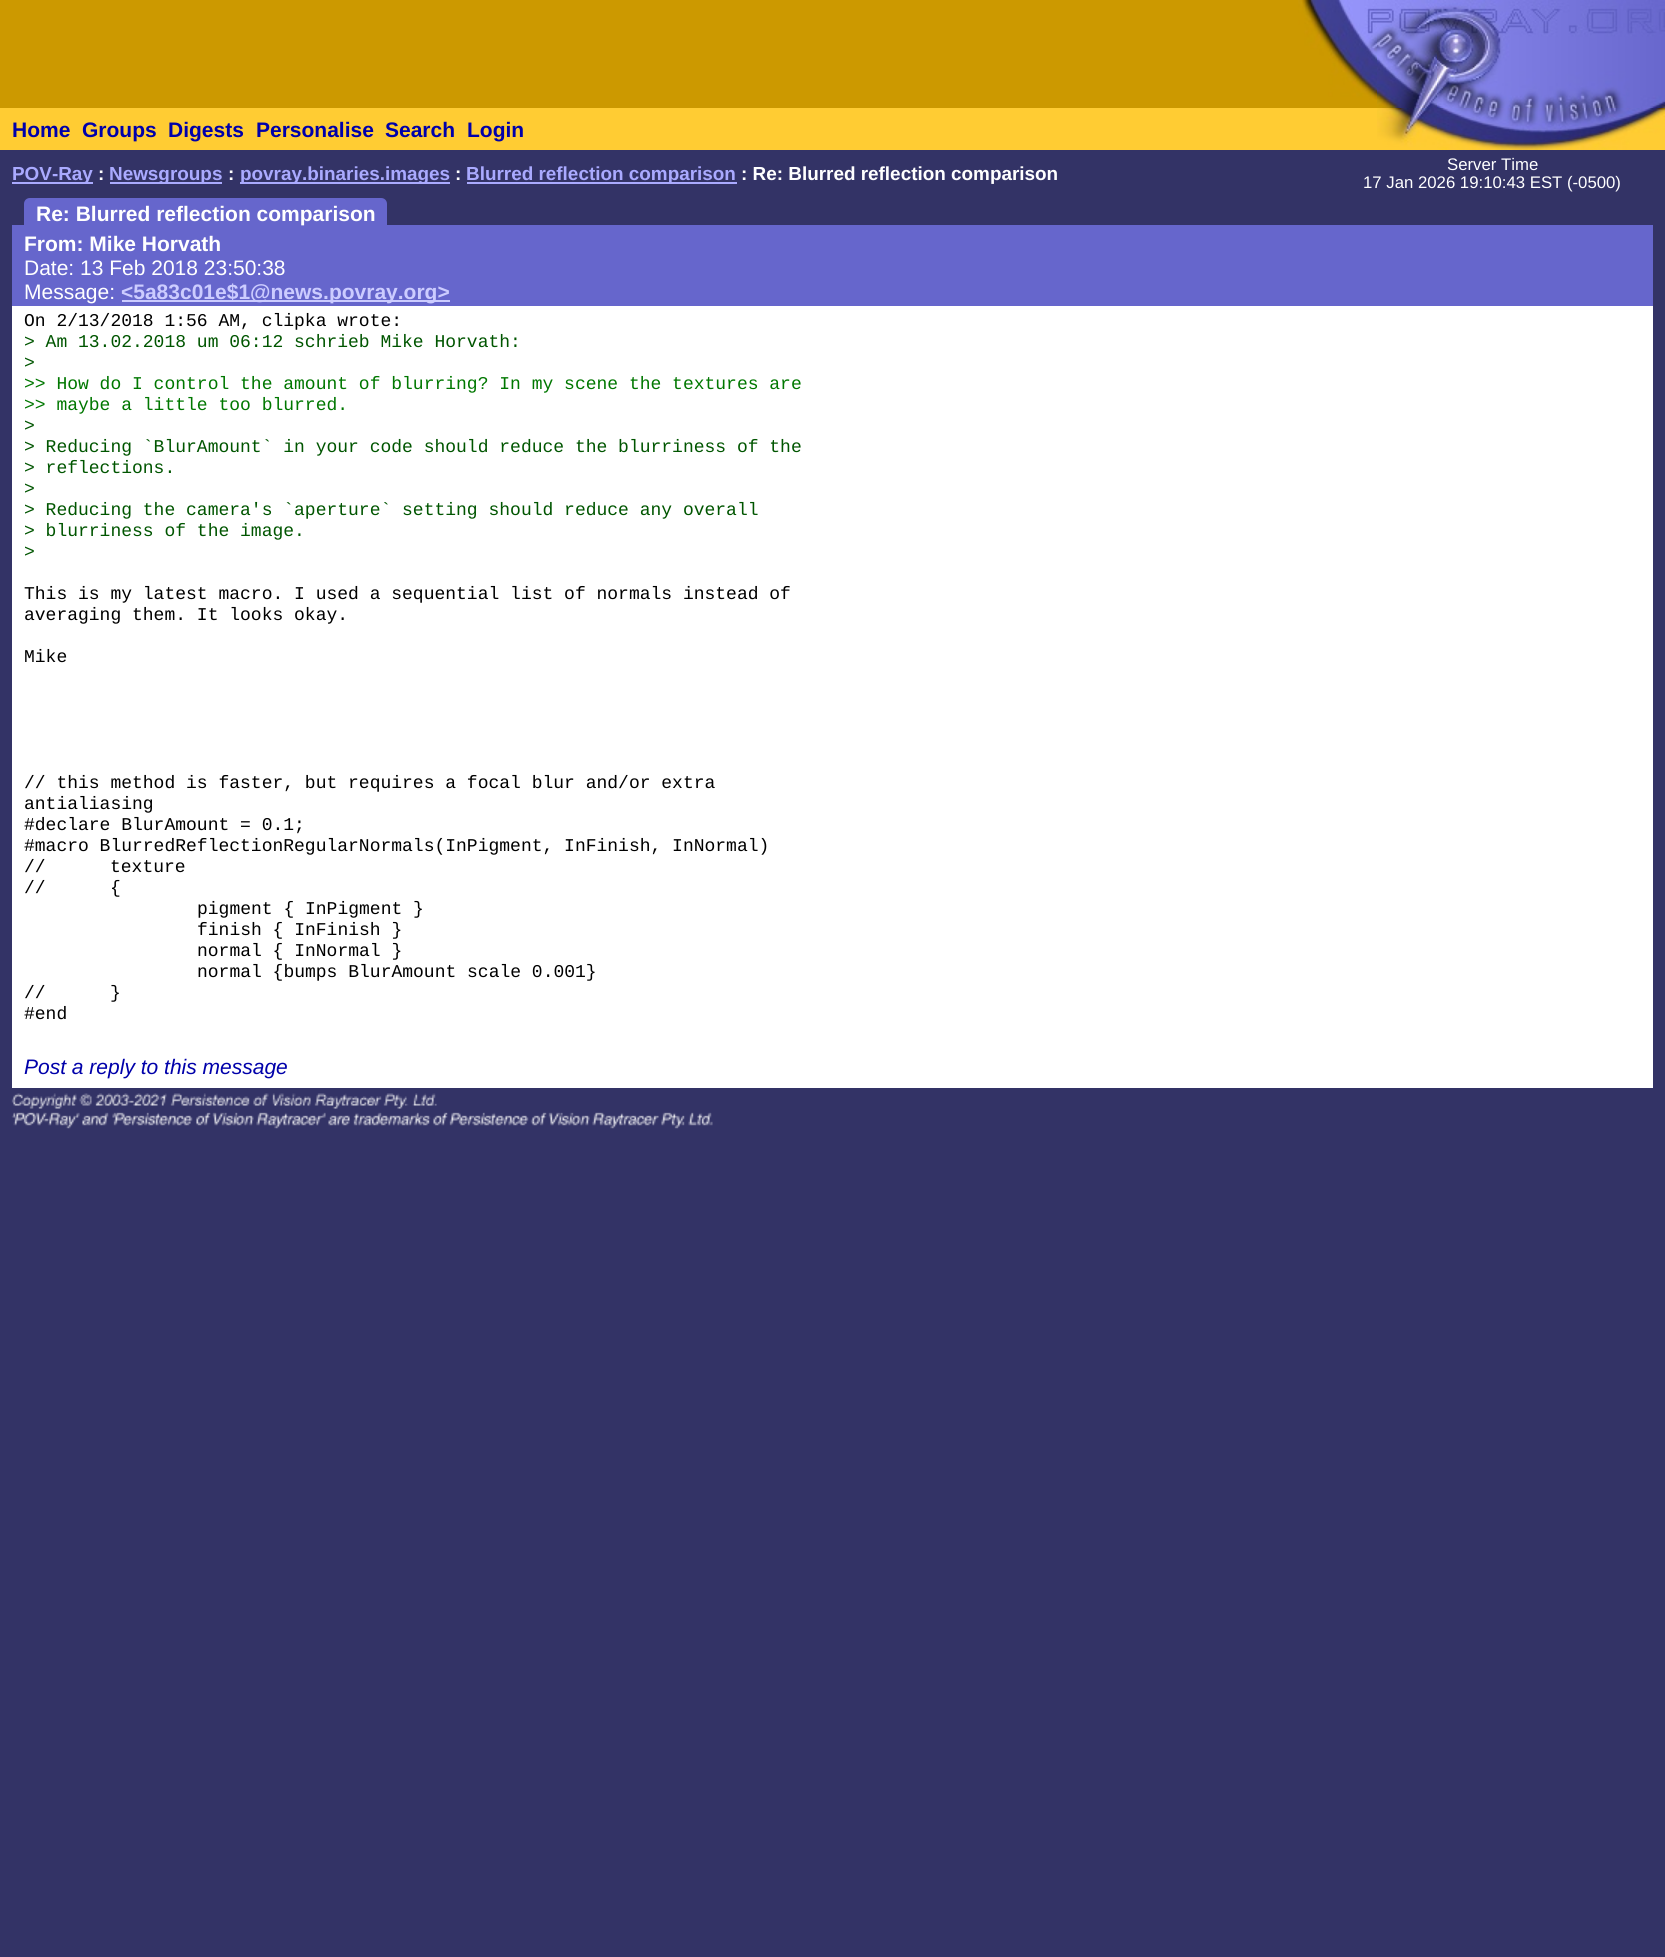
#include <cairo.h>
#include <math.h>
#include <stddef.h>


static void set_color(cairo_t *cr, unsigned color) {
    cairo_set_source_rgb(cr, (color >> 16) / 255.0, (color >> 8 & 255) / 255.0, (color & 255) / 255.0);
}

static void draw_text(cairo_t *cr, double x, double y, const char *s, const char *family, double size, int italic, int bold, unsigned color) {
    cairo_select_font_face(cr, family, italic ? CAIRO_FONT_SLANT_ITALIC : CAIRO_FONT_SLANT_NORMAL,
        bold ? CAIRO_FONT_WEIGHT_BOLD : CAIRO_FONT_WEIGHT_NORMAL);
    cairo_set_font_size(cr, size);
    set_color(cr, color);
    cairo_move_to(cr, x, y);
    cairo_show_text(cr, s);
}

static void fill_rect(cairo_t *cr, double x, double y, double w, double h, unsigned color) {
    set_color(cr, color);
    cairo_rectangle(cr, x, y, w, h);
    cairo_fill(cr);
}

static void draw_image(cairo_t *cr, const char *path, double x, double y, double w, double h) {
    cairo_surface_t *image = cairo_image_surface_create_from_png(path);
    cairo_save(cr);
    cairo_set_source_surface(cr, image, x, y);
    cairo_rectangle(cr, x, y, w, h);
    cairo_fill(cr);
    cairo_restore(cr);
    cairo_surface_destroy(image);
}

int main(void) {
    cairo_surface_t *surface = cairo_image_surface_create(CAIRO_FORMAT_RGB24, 1665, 1957);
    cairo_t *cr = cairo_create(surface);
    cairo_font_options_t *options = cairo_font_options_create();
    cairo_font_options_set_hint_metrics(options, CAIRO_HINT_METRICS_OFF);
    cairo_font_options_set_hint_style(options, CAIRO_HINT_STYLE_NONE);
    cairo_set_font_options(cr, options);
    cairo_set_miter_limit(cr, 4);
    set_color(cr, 0x333366);
    cairo_paint(cr);
    fill_rect(cr, 0, 0, 1377, 108, 0xCC9900);
    draw_image(cr, "assets/img1.png", 1298, 0, 79, 100);
    draw_image(cr, "assets/img2.png", 1377, 0, 60, 108);
    draw_image(cr, "assets/img3.png", 1437, 0, 228, 108);
    fill_rect(cr, 0, 108, 1377, 42, 0xFFCC33);
    draw_text(cr, 12, 137, "Home", "Liberation Sans", 21, 0, 1, 0x0000AA);
    draw_text(cr, 82, 137, "Groups", "Liberation Sans", 21, 0, 1, 0x0000AA);
    draw_text(cr, 168, 137, "Digests", "Liberation Sans", 21, 0, 1, 0x0000AA);
    draw_text(cr, 256, 137, "Personalise", "Liberation Sans", 21, 0, 1, 0x0000AA);
    draw_text(cr, 385, 137, "Search", "Liberation Sans", 21, 0, 1, 0x0000AA);
    draw_text(cr, 467, 137, "Login", "Liberation Sans", 21, 0, 1, 0x0000AA);
    fill_rect(cr, 1377, 147, 60, 3, 0xFFCC33);
    draw_image(cr, "assets/img4.png", 1377, 108, 60, 39);
    draw_image(cr, "assets/img5.png", 1437, 108, 228, 42);
    fill_rect(cr, 12, 182, 81, 2, 0xAAAAFF);
    draw_text(cr, 12, 180, "POV-Ray", "Liberation Sans", 18.9, 0, 1, 0xAAAAFF);
    draw_text(cr, 98, 180, ":", "Liberation Sans", 18.9, 0, 1, 0xFFFFFF);
    fill_rect(cr, 110, 182, 112, 2, 0xAAAAFF);
    draw_text(cr, 109, 180, "Newsgroups", "Liberation Sans", 18.9, 0, 1, 0xAAAAFF);
    draw_text(cr, 228, 180, ":", "Liberation Sans", 18.9, 0, 1, 0xFFFFFF);
    fill_rect(cr, 240, 182, 210, 2, 0xAAAAFF);
    draw_text(cr, 240, 180, "povray.binaries.images", "Liberation Sans", 18.9, 0, 1, 0xAAAAFF);
    draw_text(cr, 455, 180, ":", "Liberation Sans", 18.9, 0, 1, 0xFFFFFF);
    fill_rect(cr, 467, 182, 270, 2, 0xAAAAFF);
    draw_text(cr, 466, 180, "Blurred reflection comparison", "Liberation Sans", 18.9, 0, 1, 0xAAAAFF);
    draw_text(cr, 741, 180, ": Re: Blurred reflection comparison", "Liberation Sans", 18.9, 0, 1, 0xFFFFFF);
    draw_text(cr, 1447, 170, "Server Time", "Liberation Sans", 16.75, 0, 0, 0xFFFFFF);
    draw_text(cr, 1363, 188, "17 Jan 2026 19:10:43 EST (-0500)", "Liberation Sans", 16.75, 0, 0, 0xFFFFFF);
    set_color(cr, 0x6666CC);
    cairo_new_path(cr);
    cairo_move_to(cr, 30, 198);
    cairo_line_to(cr, 381, 198);
    cairo_curve_to(cr, 384.5, 198, 387, 200.5, 387, 204);
    cairo_line_to(cr, 387, 225);
    cairo_line_to(cr, 24, 225);
    cairo_line_to(cr, 24, 204);
    cairo_curve_to(cr, 24, 200.5, 26.5, 198, 30, 198);
    cairo_close_path(cr);
    cairo_fill(cr);
    fill_rect(cr, 12, 225, 1641, 6, 0x6666CC);
    draw_text(cr, 36, 221, "Re: Blurred reflection comparison", "Liberation Sans", 21, 0, 1, 0xFFFFFF);
    fill_rect(cr, 12, 231, 1641, 75, 0x6666CC);
    draw_text(cr, 24, 251, "From: Mike Horvath", "Liberation Sans", 21, 0, 1, 0xFFFFFF);
    draw_text(cr, 24, 275, "Date: 13 Feb 2018 23:50:38", "Liberation Sans", 21, 0, 0, 0xFFFFFF);
    draw_text(cr, 24, 299, "Message:", "Liberation Sans", 21, 0, 0, 0xFFFFFF);
    fill_rect(cr, 122, 300, 328, 2, 0xCCCCFF);
    draw_text(cr, 121, 299, "<5a83c01e$1@news.povray.org>", "Liberation Sans", 21, 0, 1, 0xCCCCFF);
    fill_rect(cr, 12, 306, 1641, 3, 0xFFFFFF);
    fill_rect(cr, 12, 309, 1641, 779, 0xFFFFFF);
    draw_text(cr, 24, 326, "On 2/13/2018 1:56 AM, clipka wrote:", "Liberation Mono", 18, 0, 0, 0x000000);
    draw_text(cr, 24, 347, "> Am 13.02.2018 um 06:12 schrieb Mike Horvath:", "Liberation Mono", 18, 0, 0, 0x005500);
    draw_text(cr, 24, 368, ">", "Liberation Mono", 18, 0, 0, 0x005500);
    draw_text(cr, 24, 389, ">> How do I control the amount of blurring? In my scene the textures are", "Liberation Mono", 18, 0, 0, 0x007700);
    draw_text(cr, 24, 410, ">> maybe a little too blurred.", "Liberation Mono", 18, 0, 0, 0x007700);
    draw_text(cr, 24, 431, ">", "Liberation Mono", 18, 0, 0, 0x005500);
    draw_text(cr, 24, 452, "> Reducing `BlurAmount` in your code should reduce the blurriness of the", "Liberation Mono", 18, 0, 0, 0x005500);
    draw_text(cr, 24, 473, "> reflections.", "Liberation Mono", 18, 0, 0, 0x005500);
    draw_text(cr, 24, 494, ">", "Liberation Mono", 18, 0, 0, 0x005500);
    draw_text(cr, 24, 515, "> Reducing the camera's `aperture` setting should reduce any overall", "Liberation Mono", 18, 0, 0, 0x005500);
    draw_text(cr, 24, 536, "> blurriness of the image.", "Liberation Mono", 18, 0, 0, 0x005500);
    draw_text(cr, 24, 557, ">", "Liberation Mono", 18, 0, 0, 0x005500);
    draw_text(cr, 24, 599, "This is my latest macro. I used a sequential list of normals instead of", "Liberation Mono", 18, 0, 0, 0x000000);
    draw_text(cr, 24, 620, "averaging them. It looks okay.", "Liberation Mono", 18, 0, 0, 0x000000);
    draw_text(cr, 24, 662, "Mike", "Liberation Mono", 18, 0, 0, 0x000000);
    draw_text(cr, 24, 788, "// this method is faster, but requires a focal blur and/or extra", "Liberation Mono", 18, 0, 0, 0x000000);
    draw_text(cr, 24, 809, "antialiasing", "Liberation Mono", 18, 0, 0, 0x000000);
    draw_text(cr, 24, 830, "#declare BlurAmount = 0.1;", "Liberation Mono", 18, 0, 0, 0x000000);
    draw_text(cr, 24, 851, "#macro BlurredReflectionRegularNormals(InPigment, InFinish, InNormal)", "Liberation Mono", 18, 0, 0, 0x000000);
    draw_text(cr, 24, 872, "//", "Liberation Mono", 18, 0, 0, 0x000000);
    draw_text(cr, 110, 872, "texture", "Liberation Mono", 18, 0, 0, 0x000000);
    draw_text(cr, 24, 893, "//", "Liberation Mono", 18, 0, 0, 0x000000);
    draw_text(cr, 110, 893, "{", "Liberation Mono", 18, 0, 0, 0x000000);
    draw_text(cr, 197, 914, "pigment { InPigment }", "Liberation Mono", 18, 0, 0, 0x000000);
    draw_text(cr, 197, 935, "finish { InFinish }", "Liberation Mono", 18, 0, 0, 0x000000);
    draw_text(cr, 197, 956, "normal { InNormal }", "Liberation Mono", 18, 0, 0, 0x000000);
    draw_text(cr, 197, 977, "normal {bumps BlurAmount scale 0.001}", "Liberation Mono", 18, 0, 0, 0x000000);
    draw_text(cr, 24, 998, "//", "Liberation Mono", 18, 0, 0, 0x000000);
    draw_text(cr, 110, 998, "}", "Liberation Mono", 18, 0, 0, 0x000000);
    draw_text(cr, 24, 1019, "#end", "Liberation Mono", 18, 0, 0, 0x000000);
    draw_text(cr, 24, 1074, "Post a reply to this message", "Liberation Sans", 21, 1, 0, 0x0000AA);
    draw_image(cr, "assets/img6.png", 11, 1093, 702, 36);
    cairo_surface_write_to_png(surface, "output.png");
    cairo_font_options_destroy(options);
    cairo_destroy(cr);
    cairo_surface_destroy(surface);
    return 0;
}
